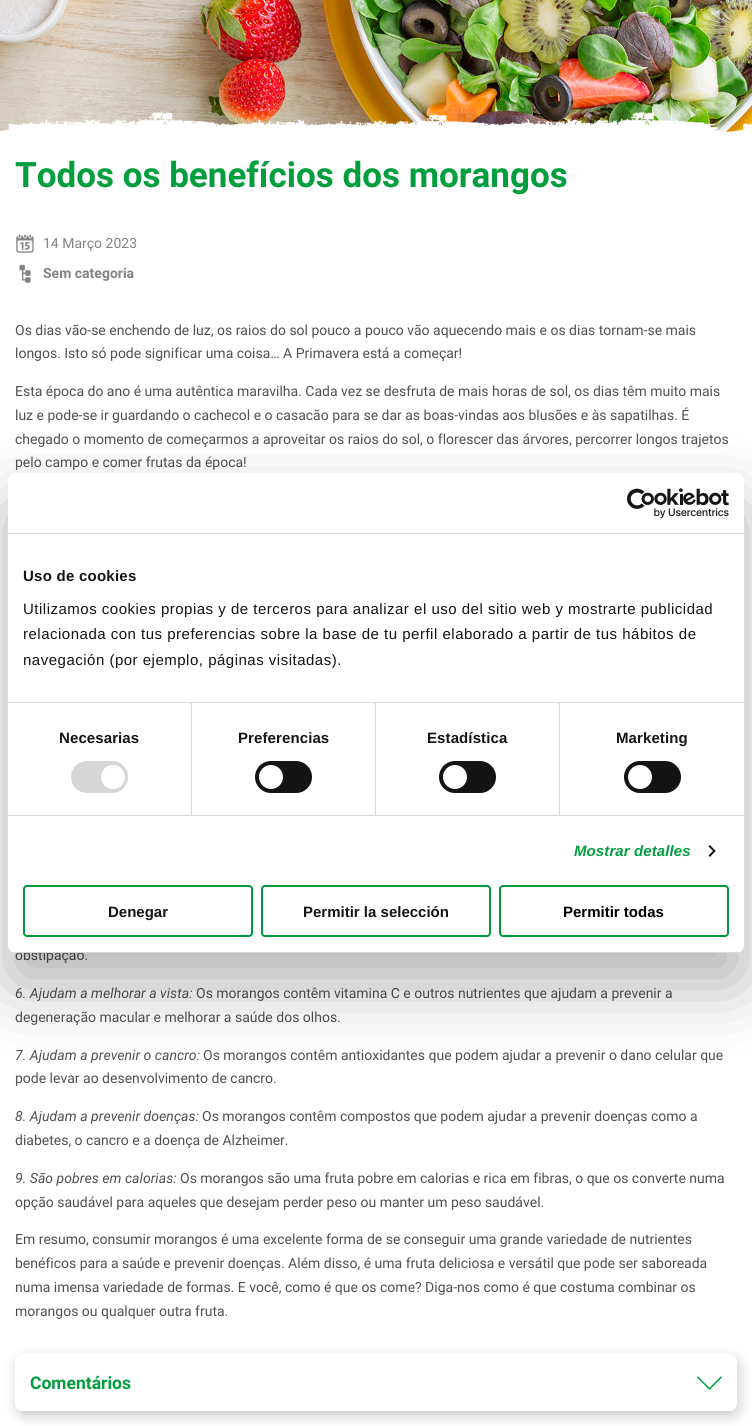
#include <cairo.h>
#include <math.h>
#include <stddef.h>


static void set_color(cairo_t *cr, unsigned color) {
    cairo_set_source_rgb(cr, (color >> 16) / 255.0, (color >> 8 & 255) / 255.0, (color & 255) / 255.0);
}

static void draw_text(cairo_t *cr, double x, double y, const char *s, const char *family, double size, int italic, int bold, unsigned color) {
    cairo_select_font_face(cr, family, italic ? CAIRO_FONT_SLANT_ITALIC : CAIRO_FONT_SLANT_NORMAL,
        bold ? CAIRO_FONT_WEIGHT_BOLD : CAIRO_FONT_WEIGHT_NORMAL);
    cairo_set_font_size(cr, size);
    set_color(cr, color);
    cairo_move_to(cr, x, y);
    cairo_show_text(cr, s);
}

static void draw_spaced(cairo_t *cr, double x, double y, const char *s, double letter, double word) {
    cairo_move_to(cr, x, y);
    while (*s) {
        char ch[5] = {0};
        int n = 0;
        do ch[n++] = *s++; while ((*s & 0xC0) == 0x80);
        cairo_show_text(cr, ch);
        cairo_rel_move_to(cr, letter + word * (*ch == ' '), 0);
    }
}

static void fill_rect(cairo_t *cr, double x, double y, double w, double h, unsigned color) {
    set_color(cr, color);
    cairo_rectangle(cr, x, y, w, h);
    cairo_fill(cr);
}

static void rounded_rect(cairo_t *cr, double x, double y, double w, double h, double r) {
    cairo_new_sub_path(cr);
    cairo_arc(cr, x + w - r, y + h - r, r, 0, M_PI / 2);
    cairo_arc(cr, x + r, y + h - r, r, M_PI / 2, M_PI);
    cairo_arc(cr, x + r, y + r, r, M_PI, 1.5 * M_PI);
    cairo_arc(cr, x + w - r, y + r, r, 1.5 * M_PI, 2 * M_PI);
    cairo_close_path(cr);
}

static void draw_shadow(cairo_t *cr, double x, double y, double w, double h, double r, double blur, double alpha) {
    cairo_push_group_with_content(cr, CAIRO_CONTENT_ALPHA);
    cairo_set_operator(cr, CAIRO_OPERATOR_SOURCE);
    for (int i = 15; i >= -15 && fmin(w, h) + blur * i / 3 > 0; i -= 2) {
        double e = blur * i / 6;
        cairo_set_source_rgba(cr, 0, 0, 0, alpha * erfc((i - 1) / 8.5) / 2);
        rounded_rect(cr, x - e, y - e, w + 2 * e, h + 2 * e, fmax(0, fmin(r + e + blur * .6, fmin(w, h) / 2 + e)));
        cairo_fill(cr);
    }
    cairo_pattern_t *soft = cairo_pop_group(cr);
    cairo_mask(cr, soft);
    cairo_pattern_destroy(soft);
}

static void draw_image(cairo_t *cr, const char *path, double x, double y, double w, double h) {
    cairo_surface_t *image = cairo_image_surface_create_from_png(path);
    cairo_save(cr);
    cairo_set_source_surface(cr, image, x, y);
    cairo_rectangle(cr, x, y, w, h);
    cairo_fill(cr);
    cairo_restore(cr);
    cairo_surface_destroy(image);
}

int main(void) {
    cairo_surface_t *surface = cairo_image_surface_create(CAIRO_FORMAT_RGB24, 752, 1426);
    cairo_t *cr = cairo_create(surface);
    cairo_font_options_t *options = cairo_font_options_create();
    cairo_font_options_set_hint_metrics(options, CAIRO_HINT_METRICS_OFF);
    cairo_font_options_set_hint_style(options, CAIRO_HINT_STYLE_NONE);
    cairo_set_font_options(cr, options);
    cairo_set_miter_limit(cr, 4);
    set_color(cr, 0xFFFFFF);
    cairo_paint(cr);
    draw_image(cr, "assets/img1.png", 0, 0, 752, 134);
    draw_image(cr, "assets/img2.png", 0, 111, 752, 27);
    draw_text(cr, 15, 187, "Todos os benefícios dos morangos", "Roboto", 35, 0, 1, 0x009E3D);
    draw_image(cr, "assets/img3.png", 16, 234, 18, 19);
    draw_text(cr, 43, 248, "14 Março 2023", "Roboto", 14, 0, 0, 0x838382);
    draw_image(cr, "assets/img4.png", 19, 264, 12, 19);
    draw_text(cr, 43, 278, "Sem categoria", "Roboto", 14, 0, 1, 0x838382);
    draw_text(cr, 15, 335, "Os dias vão-se enchendo de luz, os raios do sol pouco a pouco vão aquecendo mais e os dias tornam-se mais", "Roboto", 14, 0, 0, 0x4F4F4F);
    draw_text(cr, 15, 358, "longos. Isto só pode significar uma coisa… A Primavera está a começar!", "Roboto", 14, 0, 0, 0x4F4F4F);
    draw_text(cr, 15, 396, "Esta época do ano é uma autêntica maravilha. Cada vez se desfruta de mais horas de sol, os dias têm muito mais", "Roboto", 14, 0, 0, 0x4F4F4F);
    draw_text(cr, 15, 420, "luz e pode-se ir guardando o cachecol e o casacão para se dar as boas-vindas aos blusões e às sapatilhas. É", "Roboto", 14, 0, 0, 0x4F4F4F);
    draw_text(cr, 15, 444, "chegado o momento de começarmos a aproveitar os raios do sol, o florescer das árvores, percorrer longos trajetos", "Roboto", 14, 0, 0, 0x4F4F4F);
    draw_text(cr, 15, 467, "pelo campo e comer frutas da época!", "Roboto", 14, 0, 0, 0x4F4F4F);
    draw_text(cr, 15, 960, "obstipação.", "Roboto", 14, 0, 0, 0x4F4F4F);
    draw_text(cr, 15, 998, "6. Ajudam a melhorar a vista:", "Roboto", 14, 1, 0, 0x4F4F4F);
    draw_text(cr, 196, 998, "Os morangos contêm vitamina C e outros nutrientes que ajudam a prevenir a", "Roboto", 14, 0, 0, 0x4F4F4F);
    draw_text(cr, 15, 1022, "degeneração macular e melhorar a saúde dos olhos.", "Roboto", 14, 0, 0, 0x4F4F4F);
    draw_text(cr, 15, 1060, "7. Ajudam a prevenir o cancro:", "Roboto", 14, 1, 0, 0x4F4F4F);
    draw_text(cr, 203, 1060, "Os morangos contêm antioxidantes que podem ajudar a prevenir o dano celular que", "Roboto", 14, 0, 0, 0x4F4F4F);
    draw_text(cr, 15, 1083, "pode levar ao desenvolvimento de cancro.", "Roboto", 14, 0, 0, 0x4F4F4F);
    draw_text(cr, 15, 1121, "8. Ajudam a prevenir doenças:", "Roboto", 14, 1, 0, 0x4F4F4F);
    draw_text(cr, 202, 1121, "Os morangos contêm compostos que podem ajudar a prevenir doenças como a", "Roboto", 14, 0, 0, 0x4F4F4F);
    draw_text(cr, 15, 1145, "diabetes, o cancro e a doença de Alzheimer.", "Roboto", 14, 0, 0, 0x4F4F4F);
    draw_text(cr, 15, 1183, "9. São pobres em calorias:", "Roboto", 14, 1, 0, 0x4F4F4F);
    draw_text(cr, 180, 1183, "Os morangos são uma fruta pobre em calorias e rica em fibras, o que os converte numa", "Roboto", 14, 0, 0, 0x4F4F4F);
    draw_text(cr, 15, 1207, "opção saudável para aqueles que desejam perder peso ou manter um peso saudável.", "Roboto", 14, 0, 0, 0x4F4F4F);
    draw_text(cr, 15, 1244, "Em resumo, consumir morangos é uma excelente forma de se conseguir uma grande variedade de nutrientes", "Roboto", 14, 0, 0, 0x4F4F4F);
    draw_text(cr, 15, 1268, "benéficos para a saúde e prevenir doenças. Além disso, é uma fruta deliciosa e versátil que pode ser saboreada", "Roboto", 14, 0, 0, 0x4F4F4F);
    draw_text(cr, 15, 1292, "numa imensa variedade de formas. E você, como é que os come? Diga-nos como é que costuma combinar os", "Roboto", 14, 0, 0, 0x4F4F4F);
    draw_text(cr, 15, 1316, "morangos ou qualquer outra fruta.", "Roboto", 14, 0, 0, 0x4F4F4F);
    cairo_save(cr);
    cairo_set_fill_rule(cr, CAIRO_FILL_RULE_EVEN_ODD);
    cairo_new_path(cr);
    cairo_move_to(cr, 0, 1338);
    cairo_line_to(cr, 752, 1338);
    cairo_line_to(cr, 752, 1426);
    cairo_line_to(cr, 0, 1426);
    cairo_close_path(cr);
    cairo_move_to(cr, 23, 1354);
    cairo_line_to(cr, 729, 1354);
    cairo_curve_to(cr, 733.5, 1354, 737, 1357.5, 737, 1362);
    cairo_line_to(cr, 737, 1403);
    cairo_curve_to(cr, 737, 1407.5, 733.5, 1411, 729, 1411);
    cairo_line_to(cr, 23, 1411);
    cairo_curve_to(cr, 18.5, 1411, 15, 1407.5, 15, 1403);
    cairo_line_to(cr, 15, 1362);
    cairo_curve_to(cr, 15, 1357.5, 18.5, 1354, 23, 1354);
    cairo_close_path(cr);
    cairo_clip(cr);
    set_color(cr, 0x000000);
    draw_shadow(cr, 15, 1357, 726, 61, 10, 6, 0.15);
    cairo_restore(cr);
    cairo_save(cr);
    cairo_rectangle(cr, 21, 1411, 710, 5);
    cairo_clip(cr);
    set_color(cr, 0x000000);
    draw_shadow(cr, 23, 1367, 706, 41, 0, 6, 0.2);
    cairo_restore(cr);
    draw_text(cr, 30, 1389, "Comentários", "Roboto", 17.5, 0, 1, 0x009E3D);
    draw_image(cr, "assets/img5.png", 697, 1376, 25, 14);
    set_color(cr, 0x000000);
    draw_shadow(cr, 8, 505, 736, 480, 8, 34, 0.3);
    set_color(cr, 0xFFFFFF);
    rounded_rect(cr, 8, 473, 736, 480, 8);
    cairo_fill(cr);
    fill_rect(cr, 8, 533, 736, 1, 0xD6D6D6);
    draw_image(cr, "assets/img6.png", 627, 488, 102, 30);
    fill_rect(cr, 8, 702, 736, 1, 0xD6D6D6);
    cairo_select_font_face(cr, "Liberation Sans", CAIRO_FONT_SLANT_NORMAL, CAIRO_FONT_WEIGHT_BOLD);
    cairo_set_font_size(cr, 15);
    set_color(cr, 0x141414);
    draw_spaced(cr, 23, 581, "Uso de cookies", 0.25, 0);
    cairo_select_font_face(cr, "Liberation Sans", CAIRO_FONT_SLANT_NORMAL, CAIRO_FONT_WEIGHT_NORMAL);
    draw_spaced(cr, 23, 614, "Utilizamos cookies propias y de terceros para analizar el uso del sitio web y mostrarte publicidad", 0.5, 0);
    draw_spaced(cr, 23, 639, "relacionada con tus preferencias sobre la base de tu perfil elaborado a partir de tus hábitos de", 0.5, 0);
    draw_spaced(cr, 23, 665, "navegación (por ejemplo, páginas visitadas).", 0.5, 0);
    fill_rect(cr, 8, 815, 736, 1, 0xD6D6D6);
    fill_rect(cr, 191, 703, 1, 112, 0xD6D6D6);
    cairo_select_font_face(cr, "Liberation Sans", CAIRO_FONT_SLANT_NORMAL, CAIRO_FONT_WEIGHT_BOLD);
    set_color(cr, 0x141414);
    draw_spaced(cr, 59, 743, "Necesarias", 0.1, 0);
    set_color(cr, 0xD6D6D6);
    rounded_rect(cr, 71, 761, 57, 32, 16);
    cairo_fill(cr);
    set_color(cr, 0xFFFFFF);
    cairo_arc(cr, 113, 777, 12, 0, 2 * M_PI);
    cairo_fill(cr);
    fill_rect(cr, 375, 703, 1, 112, 0xD6D6D6);
    set_color(cr, 0x141414);
    draw_spaced(cr, 238, 743, "Preferencias", 0.1, 0);
    rounded_rect(cr, 255, 761, 57, 32, 16);
    cairo_fill(cr);
    set_color(cr, 0xFFFFFF);
    cairo_arc(cr, 271, 777, 12, 0, 2 * M_PI);
    cairo_fill(cr);
    fill_rect(cr, 559, 703, 1, 112, 0xD6D6D6);
    set_color(cr, 0x141414);
    draw_spaced(cr, 427, 743, "Estadística", 0.1, 0);
    rounded_rect(cr, 439, 761, 57, 32, 16);
    cairo_fill(cr);
    set_color(cr, 0xFFFFFF);
    cairo_arc(cr, 455, 777, 12, 0, 2 * M_PI);
    cairo_fill(cr);
    set_color(cr, 0x141414);
    draw_spaced(cr, 616, 743, "Marketing", 0.1, 0);
    rounded_rect(cr, 624, 761, 57, 32, 16);
    cairo_fill(cr);
    set_color(cr, 0xFFFFFF);
    cairo_arc(cr, 640, 777, 12, 0, 2 * M_PI);
    cairo_fill(cr);
    cairo_select_font_face(cr, "Liberation Sans", CAIRO_FONT_SLANT_ITALIC, CAIRO_FONT_WEIGHT_BOLD);
    set_color(cr, 0x009E3D);
    draw_spaced(cr, 574, 856, "Mostrar detalles", 0.1, 0);
    set_color(cr, 0x141414);
    cairo_new_path(cr);
    cairo_move_to(cr, 710, 845);
    cairo_line_to(cr, 715.5, 851);
    cairo_line_to(cr, 714.5, 852.5);
    cairo_line_to(cr, 708.5, 846.5);
    cairo_close_path(cr);
    cairo_fill(cr);
    cairo_new_path(cr);
    cairo_move_to(cr, 714.5, 849.5);
    cairo_line_to(cr, 715.5, 851);
    cairo_line_to(cr, 710, 857);
    cairo_line_to(cr, 708.5, 855.5);
    cairo_close_path(cr);
    cairo_fill(cr);
    cairo_save(cr);
    rounded_rect(cr, 8, 473, 736, 480, 8);
    cairo_clip(cr);
    fill_rect(cr, 8, 952, 736, 1, 0xD6D6D6);
    cairo_restore(cr);
    rounded_rect(cr, 24, 886, 228, 50, 3);
    set_color(cr, 0x009B38);
    cairo_stroke(cr);
    draw_text(cr, 108, 917, "Denegar", "Liberation Sans", 15, 0, 1, 0x141414);
    rounded_rect(cr, 262, 886, 228, 50, 3);
    set_color(cr, 0x009B38);
    cairo_stroke(cr);
    draw_text(cr, 303, 917, "Permitir la selección", "Liberation Sans", 15, 0, 1, 0x141414);
    rounded_rect(cr, 500, 886, 228, 50, 3);
    set_color(cr, 0x009B39);
    cairo_stroke(cr);
    draw_text(cr, 563, 917, "Permitir todas", "Liberation Sans", 15, 0, 1, 0x000000);
    cairo_surface_write_to_png(surface, "output.png");
    cairo_font_options_destroy(options);
    cairo_destroy(cr);
    cairo_surface_destroy(surface);
    return 0;
}
